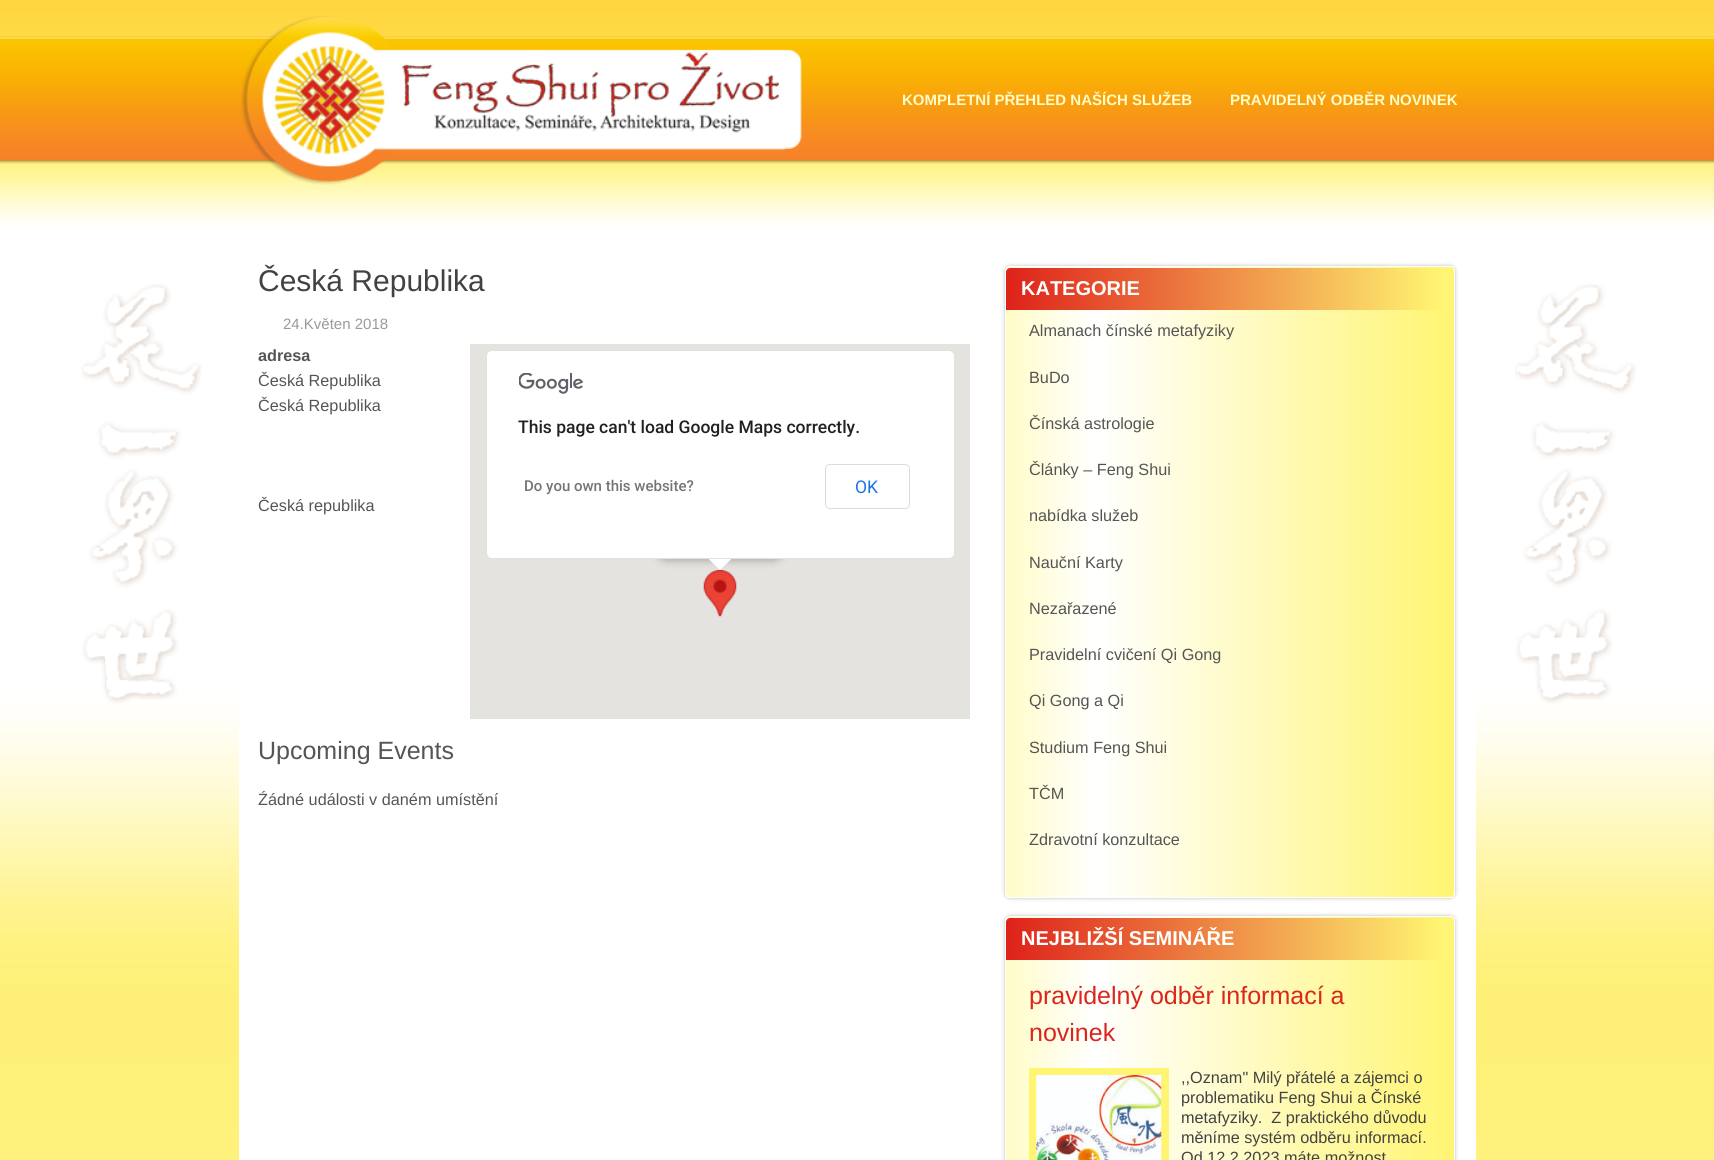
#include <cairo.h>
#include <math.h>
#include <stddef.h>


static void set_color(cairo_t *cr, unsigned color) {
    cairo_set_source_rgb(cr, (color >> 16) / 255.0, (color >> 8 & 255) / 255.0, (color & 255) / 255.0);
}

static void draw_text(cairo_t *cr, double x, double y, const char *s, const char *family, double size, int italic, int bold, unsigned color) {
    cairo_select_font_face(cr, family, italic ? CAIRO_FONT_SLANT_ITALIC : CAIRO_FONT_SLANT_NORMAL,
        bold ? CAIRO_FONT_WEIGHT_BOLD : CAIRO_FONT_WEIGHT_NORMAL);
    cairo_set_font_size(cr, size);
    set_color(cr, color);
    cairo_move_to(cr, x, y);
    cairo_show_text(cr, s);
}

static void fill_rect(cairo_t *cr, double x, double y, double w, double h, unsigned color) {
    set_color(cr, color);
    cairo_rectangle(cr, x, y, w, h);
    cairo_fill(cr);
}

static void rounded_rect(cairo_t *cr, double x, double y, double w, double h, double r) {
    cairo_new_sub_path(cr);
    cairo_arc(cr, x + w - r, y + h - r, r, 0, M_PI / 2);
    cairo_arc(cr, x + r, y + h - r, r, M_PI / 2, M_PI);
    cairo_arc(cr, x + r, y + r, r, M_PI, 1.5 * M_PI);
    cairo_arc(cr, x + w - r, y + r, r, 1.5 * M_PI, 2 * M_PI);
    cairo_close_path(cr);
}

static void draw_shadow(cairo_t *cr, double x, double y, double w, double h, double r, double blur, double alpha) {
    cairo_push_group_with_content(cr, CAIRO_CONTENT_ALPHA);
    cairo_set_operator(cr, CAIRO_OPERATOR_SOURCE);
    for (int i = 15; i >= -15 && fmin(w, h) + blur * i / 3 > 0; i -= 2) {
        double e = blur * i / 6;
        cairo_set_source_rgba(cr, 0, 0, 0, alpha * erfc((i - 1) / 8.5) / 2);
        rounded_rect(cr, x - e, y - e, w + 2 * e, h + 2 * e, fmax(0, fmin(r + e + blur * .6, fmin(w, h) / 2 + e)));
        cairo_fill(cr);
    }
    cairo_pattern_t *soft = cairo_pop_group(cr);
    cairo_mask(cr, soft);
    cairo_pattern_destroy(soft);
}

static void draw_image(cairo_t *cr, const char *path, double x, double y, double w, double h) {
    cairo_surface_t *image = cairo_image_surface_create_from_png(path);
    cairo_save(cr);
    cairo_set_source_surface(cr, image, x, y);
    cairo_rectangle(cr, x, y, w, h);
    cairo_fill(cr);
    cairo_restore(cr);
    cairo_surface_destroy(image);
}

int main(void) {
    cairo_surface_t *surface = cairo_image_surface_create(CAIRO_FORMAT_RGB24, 1714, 1160);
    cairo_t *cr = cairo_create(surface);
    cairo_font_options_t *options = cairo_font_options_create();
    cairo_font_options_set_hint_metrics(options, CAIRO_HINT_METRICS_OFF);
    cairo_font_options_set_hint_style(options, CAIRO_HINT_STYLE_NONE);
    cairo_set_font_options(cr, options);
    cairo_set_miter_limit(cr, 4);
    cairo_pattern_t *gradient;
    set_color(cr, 0xFFFFFF);
    cairo_paint(cr);
    draw_image(cr, "assets/img1.png", 0, 0, 1714, 1160);
    draw_image(cr, "assets/img2.png", 241, 16, 561, 169);
    draw_text(cr, 902, 105, "KOMPLETNÍ PŘEHLED NAŠÍCH SLUŽEB", "Liberation Sans", 15, 0, 1, 0xFFFCC7);
    draw_text(cr, 1230, 105, "PRAVIDELNÝ ODBĚR NOVINEK", "Liberation Sans", 15, 0, 1, 0xFFFCC7);
    draw_image(cr, "assets/img3.png", 81, 284, 121, 420);
    draw_image(cr, "assets/img4.png", 1515, 284, 121, 420);
    set_color(cr, 0xFFFFFF);
    rounded_rect(cr, 239, 235, 1237, 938, 13);
    cairo_fill(cr);
    draw_text(cr, 258, 291, "Česká Republika", "Liberation Sans", 30, 0, 0, 0x424242);
    draw_text(cr, 283, 329, "24.Květen 2018", "Liberation Sans", 15, 0, 0, 0x999999);
    draw_text(cr, 258, 361, "adresa", "Liberation Sans", 16.25, 0, 1, 0x555555);
    draw_text(cr, 258, 386, "Česká Republika", "Liberation Sans", 16.25, 0, 0, 0x555555);
    draw_text(cr, 258, 411, "Česká Republika", "Liberation Sans", 16.25, 0, 0, 0x555555);
    draw_text(cr, 258, 511, "Česká republika", "Liberation Sans", 16.25, 0, 0, 0x555555);
    fill_rect(cr, 470, 344, 500, 375, 0xE5E3DF);
    draw_image(cr, "assets/img5.png", 703, 570, 34, 47);
    set_color(cr, 0x000000);
    draw_shadow(cr, 656, 420, 128, 140, 11, 4.5, 0.3);
    set_color(cr, 0xFFFFFF);
    cairo_new_path(cr);
    cairo_move_to(cr, 705, 555);
    cairo_line_to(cr, 705, 555.5);
    cairo_line_to(cr, 720, 570);
    cairo_line_to(cr, 735.5, 555);
    cairo_close_path(cr);
    cairo_fill(cr);
    rounded_rect(cr, 486, 350, 469, 209, 6);
    cairo_fill(cr);
    rounded_rect(cr, 486.5, 350.5, 468, 208, 5.5);
    cairo_set_source_rgba(cr, 0, 0, 0, 0.12);
    cairo_set_line_width(cr, 1);
    cairo_stroke(cr);
    draw_image(cr, "assets/img6.png", 519, 373, 64, 21);
    draw_text(cr, 518, 433, "This page can't load Google Maps correctly.", "Roboto Medium", 17.5, 0, 0, 0x212121);
    draw_text(cr, 524, 491, "Do you own this website?", "Roboto Medium", 15, 0, 0, 0x757575);
    rounded_rect(cr, 825.5, 464.5, 84, 44, 4.5);
    set_color(cr, 0xDADCE0);
    cairo_stroke(cr);
    draw_text(cr, 855, 493, "OK", "Roboto", 17.5, 0, 0, 0x1A73E8);
    draw_text(cr, 258, 759, "Upcoming Events", "Liberation Sans", 25, 0, 0, 0x555555);
    draw_text(cr, 258, 805, "Źádné události v daném umístění", "Liberation Sans", 16.25, 0, 0, 0x555555);
    set_color(cr, 0xBBBBBB);
    draw_shadow(cr, 1005, 266, 450, 632, 5, 2, 1);
    cairo_save(cr);
    rounded_rect(cr, 1005, 266, 450, 632, 5);
    cairo_clip(cr);
    gradient = cairo_pattern_create_linear(1006, 582, 1454, 582);
    cairo_pattern_add_color_stop_rgba(gradient, 0, 1, 0.988, 0.78, 1);
    cairo_pattern_add_color_stop_rgba(gradient, 0.2, 1, 1, 1, 1);
    cairo_pattern_add_color_stop_rgba(gradient, 1, 1, 0.961, 0.447, 1);
    cairo_set_source(cr, gradient);
    cairo_pattern_destroy(gradient);
    cairo_rectangle(cr, 1006, 266, 448, 632);
    cairo_fill(cr);
    cairo_restore(cr);
    rounded_rect(cr, 1005.5, 266.5, 449, 631, 4.5);
    set_color(cr, 0xFFFFFF);
    cairo_stroke(cr);
    gradient = cairo_pattern_create_linear(1006, 289, 1441, 289);
    cairo_pattern_add_color_stop_rgba(gradient, 0, 0.871, 0.133, 0.102, 1);
    cairo_pattern_add_color_stop_rgba(gradient, 1, 1, 0.961, 0.447, 1);
    cairo_set_source(cr, gradient);
    cairo_pattern_destroy(gradient);
    cairo_new_path(cr);
    cairo_move_to(cr, 1010, 268);
    cairo_line_to(cr, 1441, 268);
    cairo_line_to(cr, 1441, 306);
    cairo_curve_to(cr, 1441, 308, 1439, 310, 1437, 310);
    cairo_line_to(cr, 1006, 310);
    cairo_line_to(cr, 1006, 272);
    cairo_curve_to(cr, 1006, 270, 1008, 268, 1010, 268);
    cairo_close_path(cr);
    cairo_fill(cr);
    draw_text(cr, 1021, 295, "KATEGORIE", "Liberation Sans", 20, 0, 1, 0xFFFFFF);
    draw_text(cr, 1029, 336, "Almanach čínské metafyziky", "Liberation Sans", 16.25, 0, 0, 0x555555);
    draw_text(cr, 1029, 383, "BuDo", "Liberation Sans", 16.25, 0, 0, 0x555555);
    draw_text(cr, 1029, 429, "Čínská astrologie", "Liberation Sans", 16.25, 0, 0, 0x555555);
    draw_text(cr, 1029, 475, "Články – Feng Shui", "Liberation Sans", 16.25, 0, 0, 0x555555);
    draw_text(cr, 1029, 521, "nabídka služeb", "Liberation Sans", 16.25, 0, 0, 0x555555);
    draw_text(cr, 1029, 568, "Nauční Karty", "Liberation Sans", 16.25, 0, 0, 0x555555);
    draw_text(cr, 1029, 614, "Nezařazené", "Liberation Sans", 16.25, 0, 0, 0x555555);
    draw_text(cr, 1029, 660, "Pravidelní cvičení Qi Gong", "Liberation Sans", 16.25, 0, 0, 0x555555);
    draw_text(cr, 1029, 706, "Qi Gong a Qi", "Liberation Sans", 16.25, 0, 0, 0x555555);
    draw_text(cr, 1029, 753, "Studium Feng Shui", "Liberation Sans", 16.25, 0, 0, 0x555555);
    draw_text(cr, 1029, 799, "TČM", "Liberation Sans", 16.25, 0, 0, 0x555555);
    draw_text(cr, 1029, 845, "Zdravotní konzultace", "Liberation Sans", 16.25, 0, 0, 0x555555);
    set_color(cr, 0xBBBBBB);
    draw_shadow(cr, 1005, 916, 450, 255, 5, 2, 1);
    cairo_save(cr);
    rounded_rect(cr, 1005, 916, 450, 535, 5);
    cairo_clip(cr);
    gradient = cairo_pattern_create_linear(1006, 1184, 1454, 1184);
    cairo_pattern_add_color_stop_rgba(gradient, 0, 1, 0.988, 0.78, 1);
    cairo_pattern_add_color_stop_rgba(gradient, 0.2, 1, 1, 1, 1);
    cairo_pattern_add_color_stop_rgba(gradient, 1, 1, 0.961, 0.447, 1);
    cairo_set_source(cr, gradient);
    cairo_pattern_destroy(gradient);
    cairo_rectangle(cr, 1006, 916, 448, 244);
    cairo_fill(cr);
    cairo_restore(cr);
    rounded_rect(cr, 1005.5, 916.5, 449, 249, 4.5);
    set_color(cr, 0xFFFFFF);
    cairo_stroke(cr);
    gradient = cairo_pattern_create_linear(1006, 939, 1441, 939);
    cairo_pattern_add_color_stop_rgba(gradient, 0, 0.871, 0.133, 0.102, 1);
    cairo_pattern_add_color_stop_rgba(gradient, 1, 1, 0.961, 0.447, 1);
    cairo_set_source(cr, gradient);
    cairo_pattern_destroy(gradient);
    cairo_new_path(cr);
    cairo_move_to(cr, 1010, 918);
    cairo_line_to(cr, 1441, 918);
    cairo_line_to(cr, 1441, 956);
    cairo_curve_to(cr, 1441, 958, 1439, 960, 1437, 960);
    cairo_line_to(cr, 1006, 960);
    cairo_line_to(cr, 1006, 922);
    cairo_curve_to(cr, 1006, 920, 1008, 918, 1010, 918);
    cairo_close_path(cr);
    cairo_fill(cr);
    draw_text(cr, 1021, 945, "NEJBLIŽŠÍ SEMINÁŘE", "Liberation Sans", 20, 0, 1, 0xFFFFFF);
    draw_text(cr, 1029, 1004, "pravidelný odběr informací a", "Liberation Sans", 25, 0, 0, 0xDA261C);
    draw_text(cr, 1029, 1041, "novinek", "Liberation Sans", 25, 0, 0, 0xDA261C);
    fill_rect(cr, 1029, 1068, 140, 92, 0xFFF572);
    draw_image(cr, "assets/img7.png", 1036, 1075, 126, 85);
    draw_text(cr, 1181, 1083, ",,Oznam\" Milý přátelé a zájemci o", "Liberation Sans", 16.25, 0, 0, 0x424242);
    draw_text(cr, 1181, 1103, "problematiku Feng Shui a Čínské", "Liberation Sans", 16.25, 0, 0, 0x424242);
    draw_text(cr, 1181, 1123, "metafyziky.  Z praktického důvodu", "Liberation Sans", 16.25, 0, 0, 0x424242);
    draw_text(cr, 1181, 1143, "měníme systém odběru informací.", "Liberation Sans", 16.25, 0, 0, 0x424242);
    draw_text(cr, 1181, 1163, "Od 12.2.2023 máte možnost", "Liberation Sans", 16.25, 0, 0, 0x424242);
    cairo_surface_write_to_png(surface, "output.png");
    cairo_font_options_destroy(options);
    cairo_destroy(cr);
    cairo_surface_destroy(surface);
    return 0;
}
